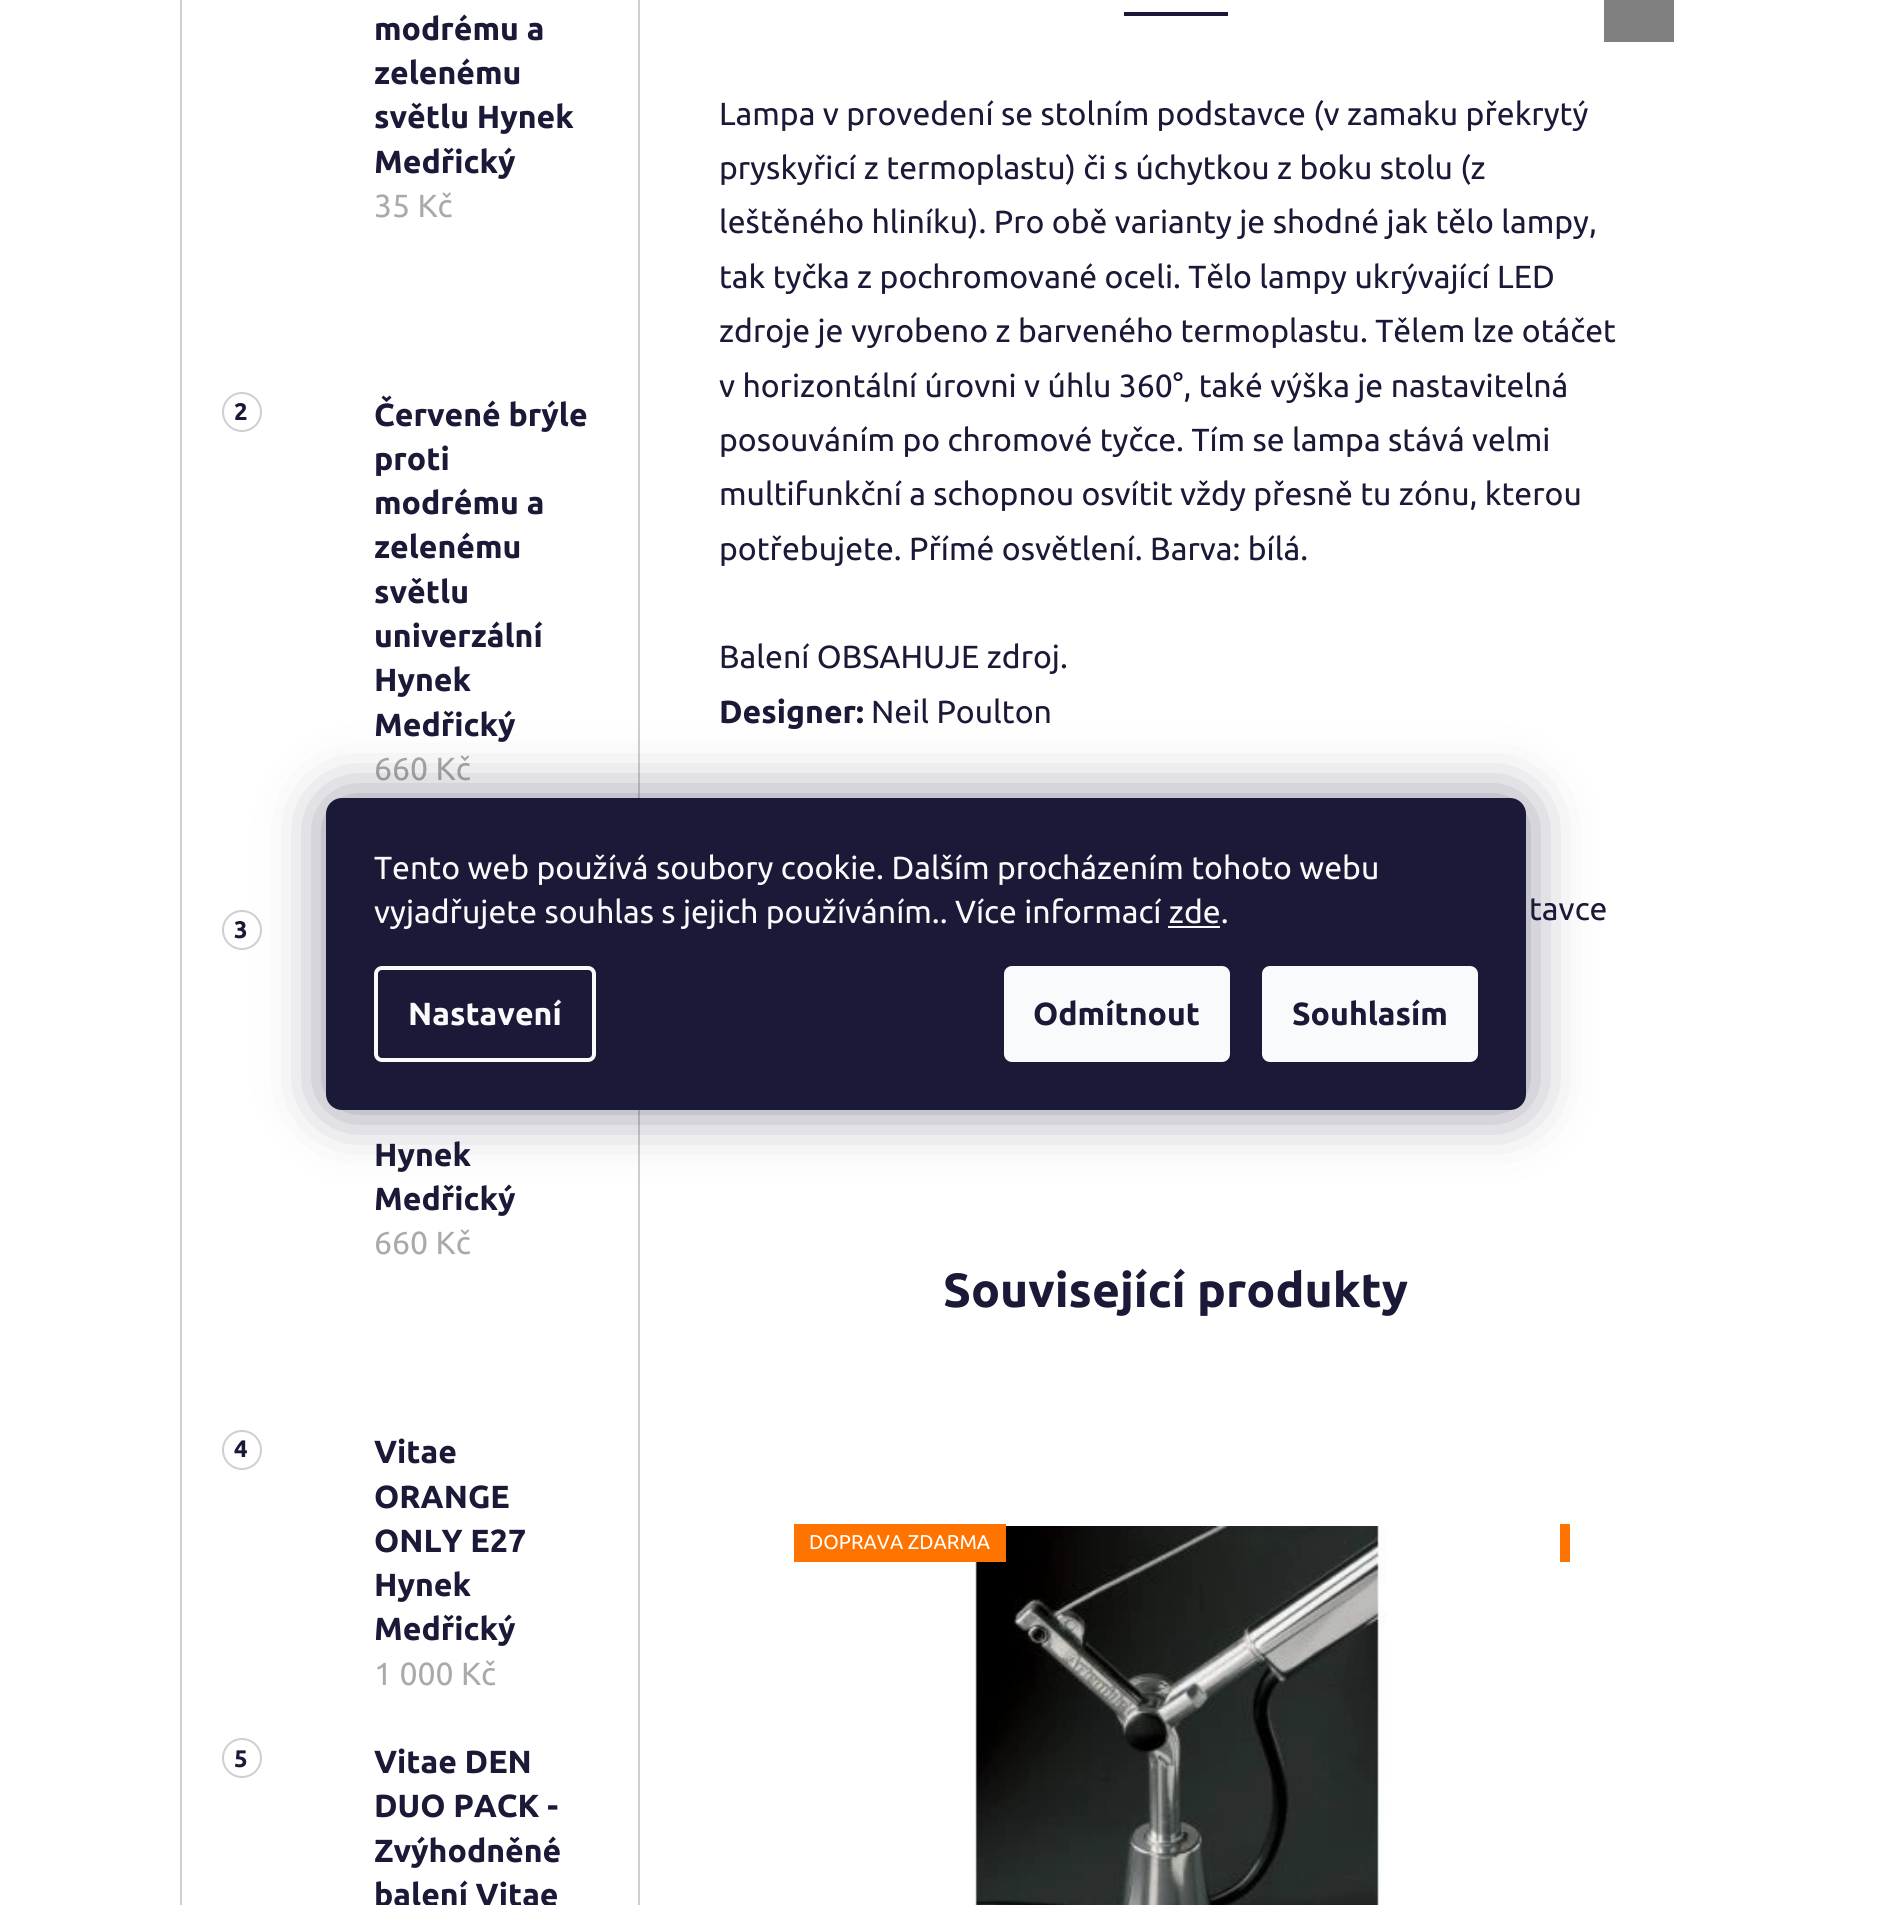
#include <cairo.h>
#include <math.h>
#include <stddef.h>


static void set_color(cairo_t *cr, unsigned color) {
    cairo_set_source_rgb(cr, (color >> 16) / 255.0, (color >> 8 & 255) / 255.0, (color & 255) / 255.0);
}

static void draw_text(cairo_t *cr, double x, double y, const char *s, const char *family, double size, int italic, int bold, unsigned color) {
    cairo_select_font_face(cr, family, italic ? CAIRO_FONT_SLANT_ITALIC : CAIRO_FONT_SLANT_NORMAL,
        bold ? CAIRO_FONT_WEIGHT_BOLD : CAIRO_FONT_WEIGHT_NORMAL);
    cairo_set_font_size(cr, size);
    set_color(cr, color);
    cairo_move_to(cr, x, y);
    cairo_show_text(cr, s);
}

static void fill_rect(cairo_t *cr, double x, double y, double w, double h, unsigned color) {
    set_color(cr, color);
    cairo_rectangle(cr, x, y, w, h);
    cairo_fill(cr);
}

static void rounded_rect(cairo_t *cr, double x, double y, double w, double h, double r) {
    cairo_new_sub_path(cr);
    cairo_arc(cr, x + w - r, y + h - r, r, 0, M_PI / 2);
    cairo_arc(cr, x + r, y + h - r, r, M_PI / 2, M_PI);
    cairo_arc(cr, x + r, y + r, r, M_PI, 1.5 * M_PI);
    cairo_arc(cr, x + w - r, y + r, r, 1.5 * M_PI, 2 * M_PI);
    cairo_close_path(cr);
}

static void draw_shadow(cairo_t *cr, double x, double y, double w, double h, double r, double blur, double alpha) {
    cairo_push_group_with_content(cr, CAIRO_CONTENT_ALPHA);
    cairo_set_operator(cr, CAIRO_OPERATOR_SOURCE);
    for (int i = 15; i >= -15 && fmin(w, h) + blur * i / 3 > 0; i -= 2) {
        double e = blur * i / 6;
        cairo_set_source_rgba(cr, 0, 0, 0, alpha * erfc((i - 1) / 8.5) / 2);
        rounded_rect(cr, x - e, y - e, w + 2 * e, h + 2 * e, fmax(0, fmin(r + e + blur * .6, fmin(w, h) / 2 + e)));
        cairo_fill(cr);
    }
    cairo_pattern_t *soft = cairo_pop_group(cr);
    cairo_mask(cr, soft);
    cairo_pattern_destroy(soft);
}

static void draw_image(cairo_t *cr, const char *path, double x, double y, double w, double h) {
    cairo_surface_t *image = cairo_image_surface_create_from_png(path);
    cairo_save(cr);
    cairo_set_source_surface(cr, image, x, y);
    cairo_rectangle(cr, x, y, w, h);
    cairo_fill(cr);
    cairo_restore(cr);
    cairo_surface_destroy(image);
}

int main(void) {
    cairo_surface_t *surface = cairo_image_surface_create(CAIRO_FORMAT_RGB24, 1882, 1905);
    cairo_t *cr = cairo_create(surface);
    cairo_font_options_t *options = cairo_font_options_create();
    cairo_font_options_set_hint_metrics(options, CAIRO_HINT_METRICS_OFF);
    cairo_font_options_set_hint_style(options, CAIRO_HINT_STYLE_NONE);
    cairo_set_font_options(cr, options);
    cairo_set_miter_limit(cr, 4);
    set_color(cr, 0xFFFFFF);
    cairo_paint(cr);
    cairo_rectangle(cr, 181, -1, 458, 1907);
    set_color(cr, 0xCFCFCF);
    cairo_stroke(cr);
    draw_text(cr, 374, 40, "modrému a", "Ubuntu", 32, 0, 1, 0x1A1937);
    draw_text(cr, 374, 84, "zelenému", "Ubuntu", 32, 0, 1, 0x1A1937);
    draw_text(cr, 374, 128, "světlu Hynek", "Ubuntu", 32, 0, 1, 0x1A1937);
    draw_text(cr, 374, 173, "Medřický", "Ubuntu", 32, 0, 1, 0x1A1937);
    draw_text(cr, 374, 217, "35 Kč", "Ubuntu", 32, 0, 0, 0xAAAAAA);
    cairo_new_path(cr);
    cairo_arc(cr, 242, 412, 19, 0, 2 * M_PI);
    set_color(cr, 0xCFCFCF);
    cairo_stroke(cr);
    draw_text(cr, 234, 420, "2", "Ubuntu", 24, 0, 1, 0x1A1937);
    draw_text(cr, 374, 426, "Červené brýle", "Ubuntu", 32, 0, 1, 0x1A1937);
    draw_text(cr, 374, 470, "proti", "Ubuntu", 32, 0, 1, 0x1A1937);
    draw_text(cr, 374, 514, "modrému a", "Ubuntu", 32, 0, 1, 0x1A1937);
    draw_text(cr, 374, 558, "zelenému", "Ubuntu", 32, 0, 1, 0x1A1937);
    draw_text(cr, 374, 603, "světlu", "Ubuntu", 32, 0, 1, 0x1A1937);
    draw_text(cr, 374, 647, "univerzální", "Ubuntu", 32, 0, 1, 0x1A1937);
    draw_text(cr, 374, 691, "Hynek", "Ubuntu", 32, 0, 1, 0x1A1937);
    draw_text(cr, 374, 736, "Medřický", "Ubuntu", 32, 0, 1, 0x1A1937);
    draw_text(cr, 374, 780, "660 Kč", "Ubuntu", 32, 0, 0, 0xAAAAAA);
    cairo_new_path(cr);
    cairo_arc(cr, 242, 930, 19, 0, 2 * M_PI);
    set_color(cr, 0xCFCFCF);
    cairo_stroke(cr);
    draw_text(cr, 234, 938, "3", "Ubuntu", 24, 0, 1, 0x1A1937);
    draw_text(cr, 374, 1166, "Hynek", "Ubuntu", 32, 0, 1, 0x1A1937);
    draw_text(cr, 374, 1210, "Medřický", "Ubuntu", 32, 0, 1, 0x1A1937);
    draw_text(cr, 374, 1254, "660 Kč", "Ubuntu", 32, 0, 0, 0xAAAAAA);
    cairo_new_path(cr);
    cairo_arc(cr, 242, 1450, 19, 0, 2 * M_PI);
    set_color(cr, 0xCFCFCF);
    cairo_stroke(cr);
    draw_text(cr, 234, 1457, "4", "Ubuntu", 24, 0, 1, 0x1A1937);
    draw_text(cr, 374, 1463, "Vitae", "Ubuntu", 32, 0, 1, 0x1A1937);
    draw_text(cr, 374, 1508, "ORANGE", "Ubuntu", 32, 0, 1, 0x1A1937);
    draw_text(cr, 374, 1552, "ONLY E27", "Ubuntu", 32, 0, 1, 0x1A1937);
    draw_text(cr, 374, 1596, "Hynek", "Ubuntu", 32, 0, 1, 0x1A1937);
    draw_text(cr, 374, 1640, "Medřický", "Ubuntu", 32, 0, 1, 0x1A1937);
    draw_text(cr, 374, 1685, "1 000 Kč", "Ubuntu", 32, 0, 0, 0xAAAAAA);
    cairo_new_path(cr);
    cairo_arc(cr, 242, 1758, 19, 0, 2 * M_PI);
    set_color(cr, 0xCFCFCF);
    cairo_stroke(cr);
    draw_text(cr, 234, 1767, "5", "Ubuntu", 24, 0, 1, 0x1A1937);
    draw_text(cr, 374, 1773, "Vitae DEN", "Ubuntu", 32, 0, 1, 0x1A1937);
    draw_text(cr, 374, 1817, "DUO PACK -", "Ubuntu", 32, 0, 1, 0x1A1937);
    draw_text(cr, 374, 1862, "Zvýhodněné", "Ubuntu", 32, 0, 1, 0x1A1937);
    draw_text(cr, 374, 1906, "balení Vitae", "Ubuntu", 32, 0, 1, 0x1A1937);
    fill_rect(cr, 1124, 12, 104, 4, 0x1A1937);
    fill_rect(cr, 1604, 0, 70, 42, 0x808080);
    draw_text(cr, 719, 125, "Lampa v provedení se stolním podstavce (v zamaku překrytý", "Ubuntu", 32, 0, 0, 0x1A1937);
    draw_text(cr, 719, 179, "pryskyřicí z termoplastu) či s úchytkou z boku stolu (z", "Ubuntu", 32, 0, 0, 0x1A1937);
    draw_text(cr, 719, 233, "leštěného hliníku). Pro obě varianty je shodné jak tělo lampy,", "Ubuntu", 32, 0, 0, 0x1A1937);
    draw_text(cr, 719, 288, "tak tyčka z pochromované oceli. Tělo lampy ukrývající LED", "Ubuntu", 32, 0, 0, 0x1A1937);
    draw_text(cr, 719, 342, "zdroje je vyrobeno z barveného termoplastu. Tělem lze otáčet", "Ubuntu", 32, 0, 0, 0x1A1937);
    draw_text(cr, 719, 397, "v horizontální úrovni v úhlu 360°, také výška je nastavitelná", "Ubuntu", 32, 0, 0, 0x1A1937);
    draw_text(cr, 719, 451, "posouváním po chromové tyčce. Tím se lampa stává velmi", "Ubuntu", 32, 0, 0, 0x1A1937);
    draw_text(cr, 719, 505, "multifunkční a schopnou osvítit vždy přesně tu zónu, kterou", "Ubuntu", 32, 0, 0, 0x1A1937);
    draw_text(cr, 719, 560, "potřebujete. Přímé osvětlení. Barva: bílá.", "Ubuntu", 32, 0, 0, 0x1A1937);
    draw_text(cr, 719, 668, "Balení OBSAHUJE zdroj.", "Ubuntu", 32, 0, 0, 0x1A1937);
    draw_text(cr, 719, 723, "Designer:", "Ubuntu", 32, 0, 1, 0x1A1937);
    draw_text(cr, 871, 723, "Neil Poulton", "Ubuntu", 32, 0, 0, 0x1A1937);
    draw_text(cr, 1529, 920, "tavce", "Ubuntu", 32, 0, 0, 0x1A1937);
    draw_text(cr, 943, 1307, "Související produkty", "Ubuntu", 48, 0, 1, 0x1A1937);
    draw_image(cr, "assets/img1.png", 975, 1526, 412, 379);
    fill_rect(cr, 794, 1524, 212, 38, 0xFF7300);
    draw_text(cr, 809, 1549, "DOPRAVA ZDARMA", "Ubuntu", 20, 0, 0, 0xFFFFFF);
    fill_rect(cr, 1560, 1524, 10, 38, 0xFF7300);
    set_color(cr, 0x1B1939);
    draw_shadow(cr, 326, 798, 1200, 312, 16, 30, 0.5);
    set_color(cr, 0x1A1937);
    rounded_rect(cr, 326, 798, 1200, 312, 16);
    cairo_fill(cr);
    draw_text(cr, 374, 879, "Tento web používá soubory cookie. Dalším procházením tohoto webu", "Ubuntu", 32, 0, 0, 0xF8FAFB);
    draw_text(cr, 374, 923, "vyjadřujete souhlas s jejich používáním.. Více informací zde.", "Ubuntu", 32, 0, 0, 0xF8FAFB);
    fill_rect(cr, 1168, 926, 52, 2, 0xF8FAFB);
    rounded_rect(cr, 376, 968, 218, 92, 6);
    cairo_set_line_width(cr, 4);
    cairo_stroke(cr);
    draw_text(cr, 408, 1025, "Nastavení", "Ubuntu", 32, 0, 1, 0xF8FAFB);
    rounded_rect(cr, 1004, 966, 226, 96, 8);
    cairo_fill(cr);
    draw_text(cr, 1033, 1025, "Odmítnout", "Ubuntu", 32, 0, 1, 0x1A1937);
    set_color(cr, 0xF8FAFB);
    rounded_rect(cr, 1262, 966, 216, 96, 8);
    cairo_fill(cr);
    draw_text(cr, 1292, 1025, "Souhlasím", "Ubuntu", 32, 0, 1, 0x1A1937);
    cairo_surface_write_to_png(surface, "output.png");
    cairo_font_options_destroy(options);
    cairo_destroy(cr);
    cairo_surface_destroy(surface);
    return 0;
}
